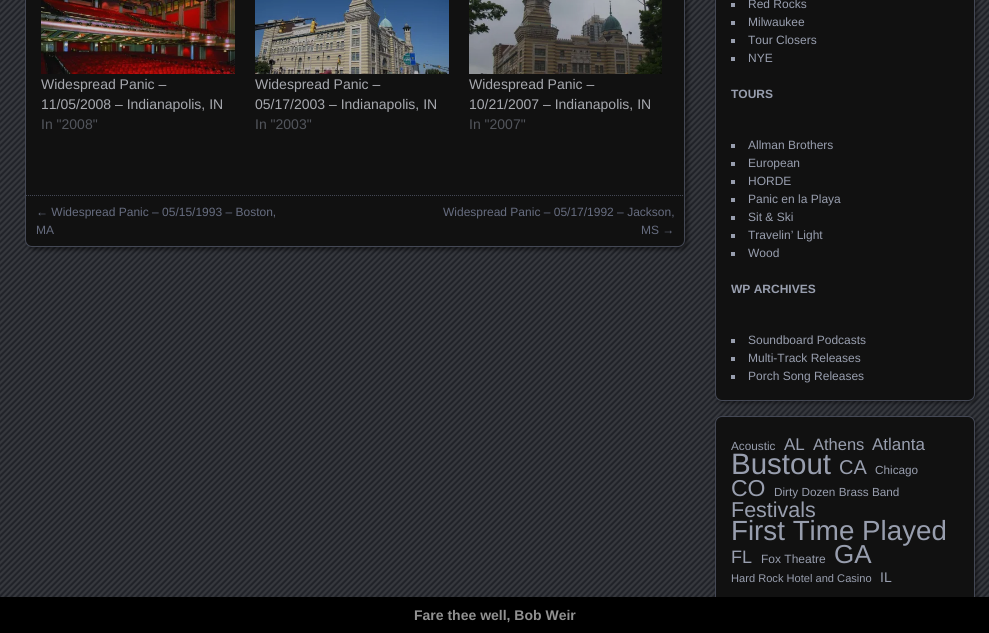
#include <cairo.h>
#include <math.h>
#include <stddef.h>


static void set_color(cairo_t *cr, unsigned color) {
    cairo_set_source_rgb(cr, (color >> 16) / 255.0, (color >> 8 & 255) / 255.0, (color & 255) / 255.0);
}

static void draw_text(cairo_t *cr, double x, double y, const char *s, const char *family, double size, int italic, int bold, unsigned color) {
    cairo_select_font_face(cr, family, italic ? CAIRO_FONT_SLANT_ITALIC : CAIRO_FONT_SLANT_NORMAL,
        bold ? CAIRO_FONT_WEIGHT_BOLD : CAIRO_FONT_WEIGHT_NORMAL);
    cairo_set_font_size(cr, size);
    set_color(cr, color);
    cairo_move_to(cr, x, y);
    cairo_show_text(cr, s);
}

static void fill_rect(cairo_t *cr, double x, double y, double w, double h, unsigned color) {
    set_color(cr, color);
    cairo_rectangle(cr, x, y, w, h);
    cairo_fill(cr);
}

static void rounded_rect(cairo_t *cr, double x, double y, double w, double h, double r) {
    cairo_new_sub_path(cr);
    cairo_arc(cr, x + w - r, y + h - r, r, 0, M_PI / 2);
    cairo_arc(cr, x + r, y + h - r, r, M_PI / 2, M_PI);
    cairo_arc(cr, x + r, y + r, r, M_PI, 1.5 * M_PI);
    cairo_arc(cr, x + w - r, y + r, r, 1.5 * M_PI, 2 * M_PI);
    cairo_close_path(cr);
}

static void draw_shadow(cairo_t *cr, double x, double y, double w, double h, double r, double blur, double alpha) {
    cairo_push_group_with_content(cr, CAIRO_CONTENT_ALPHA);
    cairo_set_operator(cr, CAIRO_OPERATOR_SOURCE);
    for (int i = 15; i >= -15 && fmin(w, h) + blur * i / 3 > 0; i -= 2) {
        double e = blur * i / 6;
        cairo_set_source_rgba(cr, 0, 0, 0, alpha * erfc((i - 1) / 8.5) / 2);
        rounded_rect(cr, x - e, y - e, w + 2 * e, h + 2 * e, fmax(0, fmin(r + e + blur * .6, fmin(w, h) / 2 + e)));
        cairo_fill(cr);
    }
    cairo_pattern_t *soft = cairo_pop_group(cr);
    cairo_mask(cr, soft);
    cairo_pattern_destroy(soft);
}

static void draw_image(cairo_t *cr, const char *path, double x, double y, double w, double h) {
    cairo_surface_t *image = cairo_image_surface_create_from_png(path);
    cairo_save(cr);
    cairo_set_source_surface(cr, image, x, y);
    cairo_rectangle(cr, x, y, w, h);
    cairo_fill(cr);
    cairo_restore(cr);
    cairo_surface_destroy(image);
}

int main(void) {
    cairo_surface_t *surface = cairo_image_surface_create(CAIRO_FORMAT_RGB24, 989, 633);
    cairo_t *cr = cairo_create(surface);
    cairo_font_options_t *options = cairo_font_options_create();
    cairo_font_options_set_hint_metrics(options, CAIRO_HINT_METRICS_OFF);
    cairo_font_options_set_hint_style(options, CAIRO_HINT_STYLE_NONE);
    cairo_set_font_options(cr, options);
    cairo_set_miter_limit(cr, 4);
    set_color(cr, 0x202228);
    cairo_paint(cr);
    draw_image(cr, "assets/img1.png", 0, 0, 989, 597);
    set_color(cr, 0x000000);
    draw_shadow(cr, 28, -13, 660, 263, 7, 2, 0.45);
    set_color(cr, 0x111111);
    rounded_rect(cr, 25.5, -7.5, 659, 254, 6.5);
    cairo_fill_preserve(cr);
    set_color(cr, 0x444855);
    cairo_set_line_width(cr, 1);
    cairo_stroke(cr);
    draw_image(cr, "assets/img2.png", 41, 0, 194, 74);
    draw_text(cr, 41, 89, "Widespread Panic –", "Liberation Sans", 14, 0, 0, 0xA7A9AF);
    draw_text(cr, 41, 109, "11/05/2008 – Indianapolis, IN", "Liberation Sans", 14, 0, 0, 0xA7A9AF);
    draw_text(cr, 41, 129, "In \"2008\"", "Liberation Sans", 14, 0, 0, 0x52555C);
    draw_image(cr, "assets/img3.png", 255, 0, 194, 74);
    draw_text(cr, 255, 89, "Widespread Panic –", "Liberation Sans", 14, 0, 0, 0xA7A9AF);
    draw_text(cr, 255, 109, "05/17/2003 – Indianapolis, IN", "Liberation Sans", 14, 0, 0, 0xA7A9AF);
    draw_text(cr, 255, 129, "In \"2003\"", "Liberation Sans", 14, 0, 0, 0x52555C);
    draw_image(cr, "assets/img4.png", 469, 0, 193, 74);
    draw_text(cr, 469, 89, "Widespread Panic –", "Liberation Sans", 14, 0, 0, 0xA7A9AF);
    draw_text(cr, 469, 109, "10/21/2007 – Indianapolis, IN", "Liberation Sans", 14, 0, 0, 0xA7A9AF);
    draw_text(cr, 469, 129, "In \"2007\"", "Liberation Sans", 14, 0, 0, 0x52555C);
    cairo_new_path(cr);
    cairo_move_to(cr, 26, 195.5);
    cairo_line_to(cr, 684, 195.5);
    set_color(cr, 0x444855);
    cairo_set_dash(cr, (double[]){1, 1}, 2, 0);
    cairo_stroke(cr);
    draw_text(cr, 36, 216, "← Widespread Panic – 05/15/1993 – Boston,", "Liberation Sans", 12, 0, 0, 0x666C7F);
    draw_text(cr, 36, 234, "MA", "Liberation Sans", 12, 0, 0, 0x666C7F);
    draw_text(cr, 443, 216, "Widespread Panic – 05/17/1992 – Jackson,", "Liberation Sans", 12, 0, 0, 0x666C7F);
    draw_text(cr, 641, 234, "MS →", "Liberation Sans", 12, 0, 0, 0x666C7F);
    set_color(cr, 0x000000);
    draw_shadow(cr, 717, -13, 260, 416, 7, 2, 0.45);
    set_color(cr, 0x111111);
    rounded_rect(cr, 715.5, -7.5, 259, 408, 6.5);
    cairo_fill_preserve(cr);
    set_color(cr, 0x444855);
    cairo_set_dash(cr, NULL, 0, 0);
    cairo_stroke(cr);
    fill_rect(cr, 731, 3, 4, 4, 0x989EAE);
    draw_text(cr, 748, 8, "Red Rocks", "Liberation Sans", 12, 0, 0, 0x989EAE);
    fill_rect(cr, 731, 21, 4, 4, 0x989EAE);
    draw_text(cr, 748, 26, "Milwaukee", "Liberation Sans", 12, 0, 0, 0x989EAE);
    fill_rect(cr, 731, 39, 4, 4, 0x989EAE);
    draw_text(cr, 748, 44, "Tour Closers", "Liberation Sans", 12, 0, 0, 0x989EAE);
    fill_rect(cr, 731, 57, 4, 4, 0x989EAE);
    draw_text(cr, 748, 62, "NYE", "Liberation Sans", 12, 0, 0, 0x989EAE);
    draw_text(cr, 731, 98, "TOURS", "Liberation Sans", 12, 0, 1, 0x989EAE);
    fill_rect(cr, 731, 144, 4, 4, 0x989EAE);
    draw_text(cr, 748, 149, "Allman Brothers", "Liberation Sans", 12, 0, 0, 0x989EAE);
    fill_rect(cr, 731, 162, 4, 4, 0x989EAE);
    draw_text(cr, 748, 167, "European", "Liberation Sans", 12, 0, 0, 0x989EAE);
    fill_rect(cr, 731, 180, 4, 4, 0x989EAE);
    draw_text(cr, 748, 185, "HORDE", "Liberation Sans", 12, 0, 0, 0x989EAE);
    fill_rect(cr, 731, 198, 4, 4, 0x989EAE);
    draw_text(cr, 748, 203, "Panic en la Playa", "Liberation Sans", 12, 0, 0, 0x989EAE);
    fill_rect(cr, 731, 216, 4, 4, 0x989EAE);
    draw_text(cr, 748, 221, "Sit & Ski", "Liberation Sans", 12, 0, 0, 0x989EAE);
    fill_rect(cr, 731, 234, 4, 4, 0x989EAE);
    draw_text(cr, 748, 239, "Travelin’ Light", "Liberation Sans", 12, 0, 0, 0x989EAE);
    fill_rect(cr, 731, 252, 4, 4, 0x989EAE);
    draw_text(cr, 748, 257, "Wood", "Liberation Sans", 12, 0, 0, 0x989EAE);
    draw_text(cr, 731, 293, "WP ARCHIVES", "Liberation Sans", 12, 0, 1, 0x989EAE);
    fill_rect(cr, 731, 339, 4, 4, 0x989EAE);
    draw_text(cr, 748, 344, "Soundboard Podcasts", "Liberation Sans", 12, 0, 0, 0x989EAE);
    fill_rect(cr, 731, 357, 4, 4, 0x989EAE);
    draw_text(cr, 748, 362, "Multi-Track Releases", "Liberation Sans", 12, 0, 0, 0x989EAE);
    fill_rect(cr, 731, 375, 4, 4, 0x989EAE);
    draw_text(cr, 748, 380, "Porch Song Releases", "Liberation Sans", 12, 0, 0, 0x989EAE);
    set_color(cr, 0x000000);
    draw_shadow(cr, 717, 418, 260, 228, 7, 2, 0.45);
    set_color(cr, 0x111111);
    rounded_rect(cr, 715.5, 416.5, 259, 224, 6.5);
    cairo_fill_preserve(cr);
    set_color(cr, 0x444855);
    cairo_stroke(cr);
    draw_text(cr, 731, 450, "Acoustic", "Liberation Sans", 11.75, 0, 0, 0x989EAE);
    draw_text(cr, 784, 450, "AL", "Liberation Sans", 17, 0, 0, 0x989EAE);
    draw_text(cr, 813, 450, "Athens", "Liberation Sans", 16.5, 0, 0, 0x989EAE);
    draw_text(cr, 872, 450, "Atlanta", "Liberation Sans", 17, 0, 0, 0x989EAE);
    draw_text(cr, 731, 474, "Bustout", "Liberation Sans", 29.5, 0, 0, 0x989EAE);
    draw_text(cr, 839, 474, "CA", "Liberation Sans", 20, 0, 0, 0x989EAE);
    draw_text(cr, 875, 474, "Chicago", "Liberation Sans", 11.75, 0, 0, 0x989EAE);
    draw_text(cr, 731, 496, "CO", "Liberation Sans", 23, 0, 0, 0x989EAE);
    draw_text(cr, 774, 496, "Dirty Dozen Brass Band", "Liberation Sans", 11.75, 0, 0, 0x989EAE);
    draw_text(cr, 731, 517, "Festivals", "Liberation Sans", 21.5, 0, 0, 0x989EAE);
    draw_text(cr, 731, 540, "First Time Played", "Liberation Sans", 27.75, 0, 0, 0x989EAE);
    draw_text(cr, 731, 563, "FL", "Liberation Sans", 18, 0, 0, 0x989EAE);
    draw_text(cr, 761, 563, "Fox Theatre", "Liberation Sans", 12, 0, 0, 0x989EAE);
    draw_text(cr, 834, 563, "GA", "Liberation Sans", 26, 0, 0, 0x989EAE);
    draw_text(cr, 731, 582, "Hard Rock Hotel and Casino", "Liberation Sans", 11.1, 0, 0, 0x989EAE);
    draw_text(cr, 880, 582, "IL", "Liberation Sans", 14, 0, 0, 0x989EAE);
    fill_rect(cr, 0, 597, 989, 36, 0x000000);
    draw_text(cr, 414, 620, "Fare thee well, Bob Weir", "Liberation Sans", 14, 0, 1, 0x919191);
    cairo_surface_write_to_png(surface, "output.png");
    cairo_font_options_destroy(options);
    cairo_destroy(cr);
    cairo_surface_destroy(surface);
    return 0;
}
